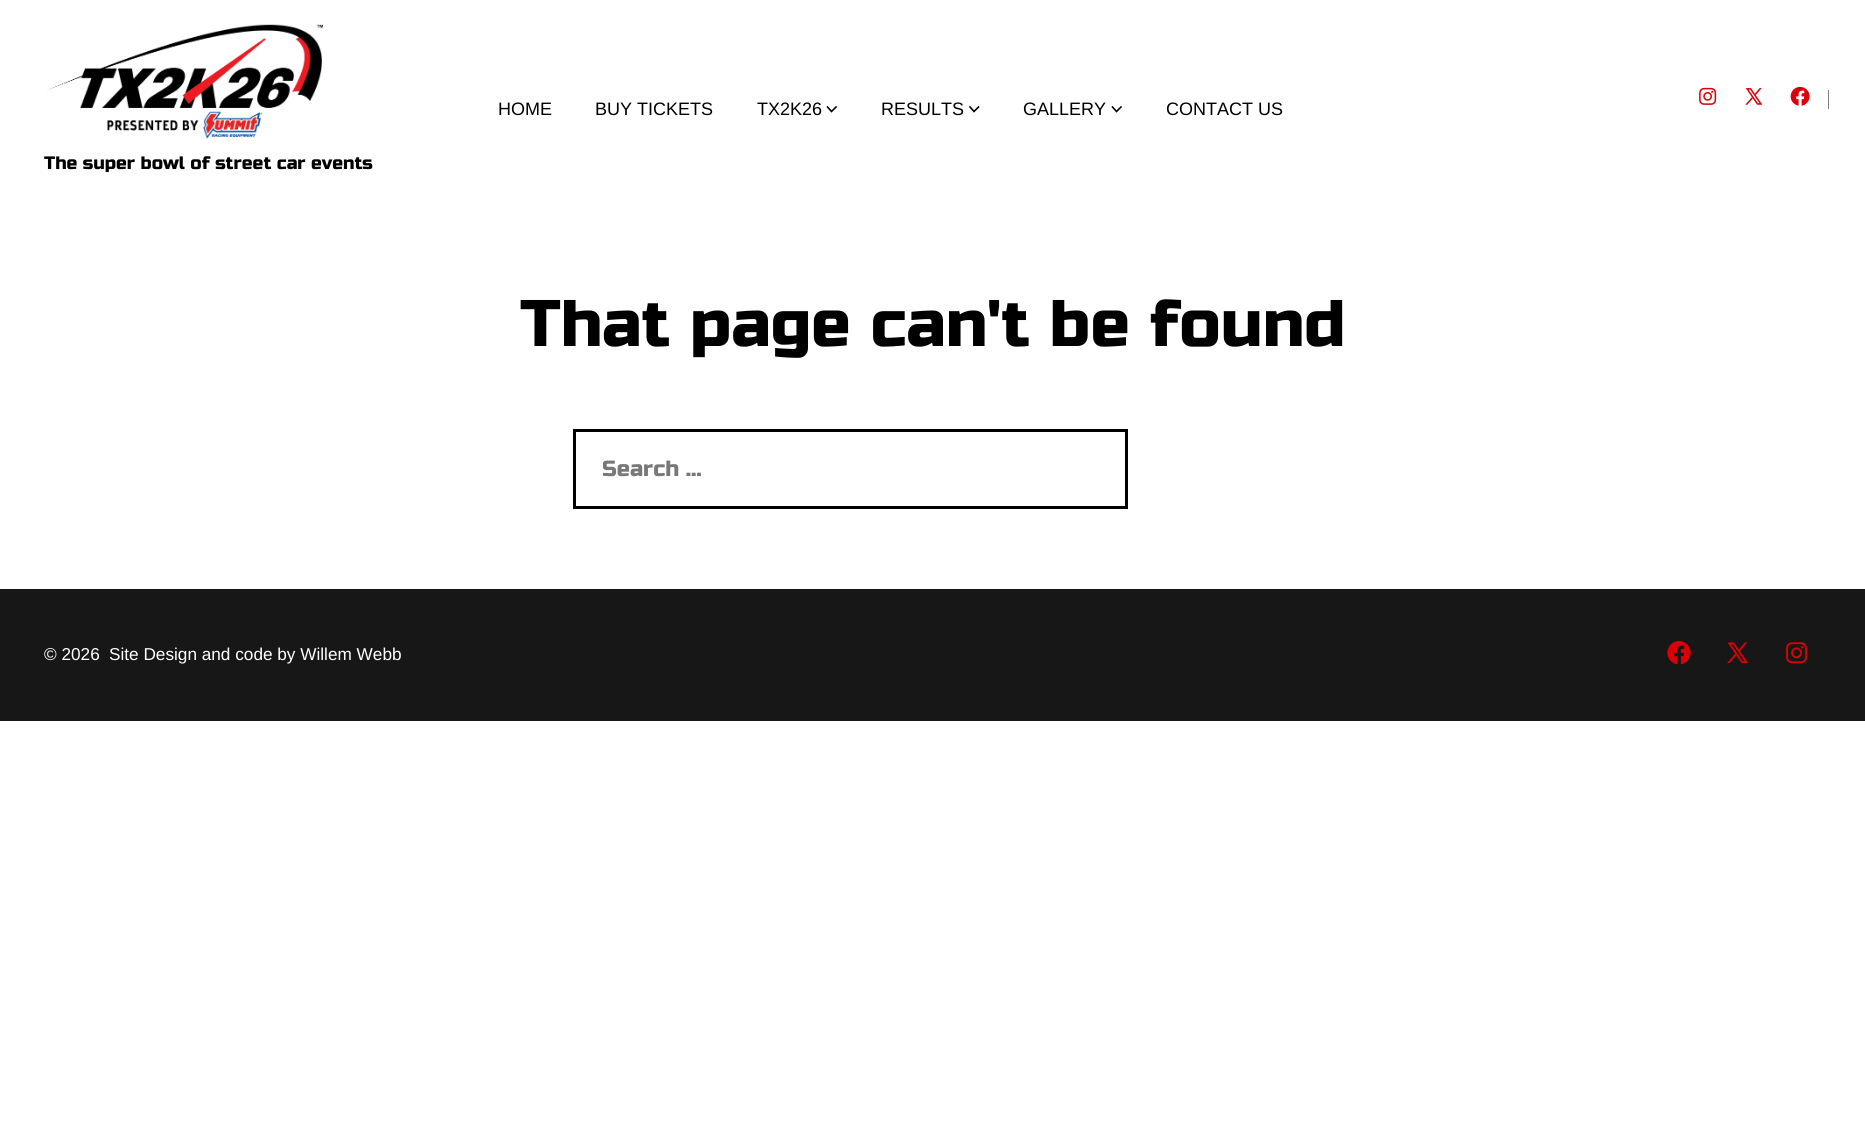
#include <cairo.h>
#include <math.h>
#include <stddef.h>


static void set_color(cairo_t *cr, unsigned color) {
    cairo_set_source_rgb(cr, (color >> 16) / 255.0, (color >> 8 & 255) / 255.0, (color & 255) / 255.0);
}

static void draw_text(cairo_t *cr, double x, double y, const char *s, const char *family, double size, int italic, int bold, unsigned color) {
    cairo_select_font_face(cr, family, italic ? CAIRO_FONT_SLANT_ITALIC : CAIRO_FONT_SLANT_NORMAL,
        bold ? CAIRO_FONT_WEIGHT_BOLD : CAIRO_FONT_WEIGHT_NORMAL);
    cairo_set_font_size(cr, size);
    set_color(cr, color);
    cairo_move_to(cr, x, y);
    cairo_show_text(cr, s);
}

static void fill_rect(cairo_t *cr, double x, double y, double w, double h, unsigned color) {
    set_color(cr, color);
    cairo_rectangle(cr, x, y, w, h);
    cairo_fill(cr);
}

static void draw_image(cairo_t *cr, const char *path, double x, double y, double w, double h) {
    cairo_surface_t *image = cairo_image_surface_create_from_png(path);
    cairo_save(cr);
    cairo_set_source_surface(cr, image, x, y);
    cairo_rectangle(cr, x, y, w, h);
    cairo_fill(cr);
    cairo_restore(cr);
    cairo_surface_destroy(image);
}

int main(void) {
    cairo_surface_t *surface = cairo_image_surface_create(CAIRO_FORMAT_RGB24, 1865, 1128);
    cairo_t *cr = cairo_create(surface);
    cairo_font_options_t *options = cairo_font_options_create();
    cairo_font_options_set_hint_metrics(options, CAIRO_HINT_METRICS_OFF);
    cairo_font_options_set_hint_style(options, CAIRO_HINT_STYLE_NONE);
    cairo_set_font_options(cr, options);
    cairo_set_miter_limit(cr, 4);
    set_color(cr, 0xFFFFFF);
    cairo_paint(cr);
    draw_image(cr, "assets/img1.png", 1699, 87, 18, 18);
    draw_image(cr, "assets/img2.png", 1745, 88, 18, 17);
    draw_image(cr, "assets/img3.png", 1790, 86, 20, 20);
    fill_rect(cr, 1828, 90, 1, 19, 0x808080);
    draw_text(cr, 498, 115, "HOME", "Liberation Sans", 18, 0, 0, 0x000000);
    draw_text(cr, 595, 115, "BUY TICKETS", "Liberation Sans", 18, 0, 0, 0x000000);
    draw_text(cr, 757, 115, "TX2K26", "Liberation Sans", 18, 0, 0, 0x000000);
    cairo_new_path(cr);
    cairo_move_to(cr, 827.5, 107);
    cairo_line_to(cr, 831.5, 111.5);
    cairo_line_to(cr, 836, 107);
    cairo_set_line_width(cr, 1.6);
    cairo_set_line_cap(cr, CAIRO_LINE_CAP_SQUARE);
    cairo_stroke(cr);
    draw_text(cr, 881, 115, "RESULTS", "Liberation Sans", 18, 0, 0, 0x000000);
    cairo_new_path(cr);
    cairo_move_to(cr, 970, 107);
    cairo_line_to(cr, 974, 111.5);
    cairo_line_to(cr, 978.5, 107);
    cairo_stroke(cr);
    draw_text(cr, 1023, 115, "GALLERY", "Liberation Sans", 18, 0, 0, 0x000000);
    cairo_new_path(cr);
    cairo_move_to(cr, 1112.5, 107);
    cairo_line_to(cr, 1116.5, 111.5);
    cairo_line_to(cr, 1121, 107);
    cairo_stroke(cr);
    draw_text(cr, 1166, 115, "CONTACT US", "Liberation Sans", 18, 0, 0, 0x000000);
    draw_image(cr, "assets/img4.png", 47, 24, 276, 115);
    draw_text(cr, 44, 169, "The super bowl of street car events", "Russo One", 18, 0, 0, 0x000000);
    draw_text(cr, 520, 346, "That page can't be found", "Russo One", 65.75, 0, 0, 0x000000);
    cairo_rectangle(cr, 574.5, 430.5, 552, 77);
    cairo_set_line_width(cr, 3);
    cairo_set_line_cap(cr, CAIRO_LINE_CAP_BUTT);
    cairo_stroke(cr);
    cairo_save(cr);
    cairo_rectangle(cr, 603, 456, 475, 27);
    cairo_clip(cr);
    draw_text(cr, 602, 476, "Search …", "Russo One", 22, 0, 0, 0x787878);
    cairo_restore(cr);
    fill_rect(cr, 0, 589, 1865, 132, 0x171717);
    draw_text(cr, 44, 660, "© 2026", "Liberation Sans", 17.2, 0, 0, 0xFFFFFF);
    draw_text(cr, 109, 660, "Site Design and code by Willem Webb", "Liberation Sans", 17.2, 0, 0, 0xFFFFFF);
    draw_image(cr, "assets/img5.png", 1667, 641, 24, 24);
    draw_image(cr, "assets/img6.png", 1727, 642, 21, 22);
    draw_image(cr, "assets/img7.png", 1786, 642, 22, 22);
    cairo_surface_write_to_png(surface, "output.png");
    cairo_font_options_destroy(options);
    cairo_destroy(cr);
    cairo_surface_destroy(surface);
    return 0;
}
